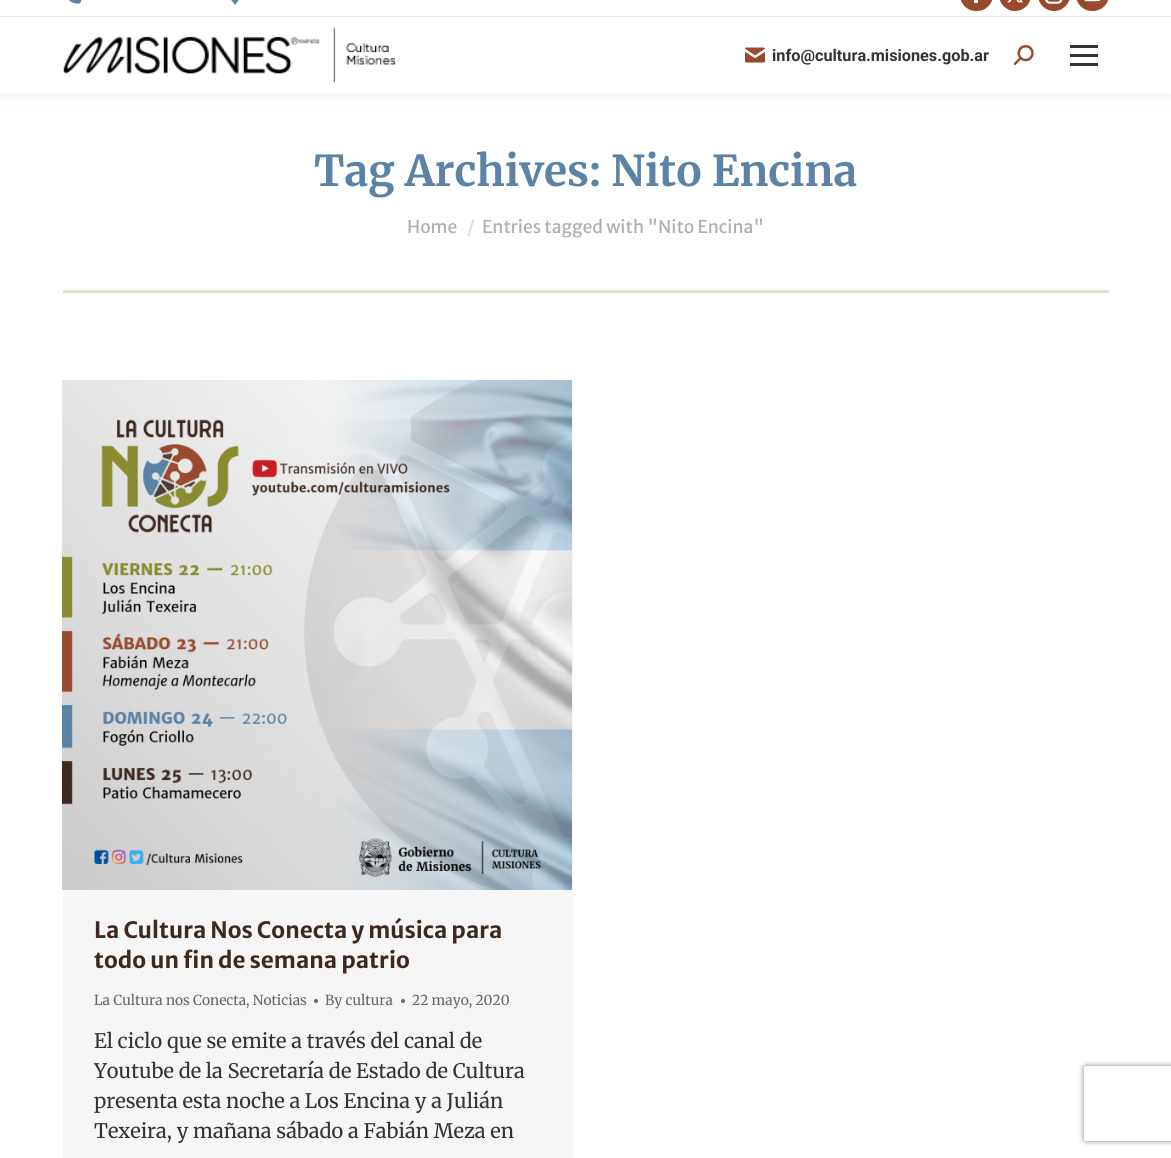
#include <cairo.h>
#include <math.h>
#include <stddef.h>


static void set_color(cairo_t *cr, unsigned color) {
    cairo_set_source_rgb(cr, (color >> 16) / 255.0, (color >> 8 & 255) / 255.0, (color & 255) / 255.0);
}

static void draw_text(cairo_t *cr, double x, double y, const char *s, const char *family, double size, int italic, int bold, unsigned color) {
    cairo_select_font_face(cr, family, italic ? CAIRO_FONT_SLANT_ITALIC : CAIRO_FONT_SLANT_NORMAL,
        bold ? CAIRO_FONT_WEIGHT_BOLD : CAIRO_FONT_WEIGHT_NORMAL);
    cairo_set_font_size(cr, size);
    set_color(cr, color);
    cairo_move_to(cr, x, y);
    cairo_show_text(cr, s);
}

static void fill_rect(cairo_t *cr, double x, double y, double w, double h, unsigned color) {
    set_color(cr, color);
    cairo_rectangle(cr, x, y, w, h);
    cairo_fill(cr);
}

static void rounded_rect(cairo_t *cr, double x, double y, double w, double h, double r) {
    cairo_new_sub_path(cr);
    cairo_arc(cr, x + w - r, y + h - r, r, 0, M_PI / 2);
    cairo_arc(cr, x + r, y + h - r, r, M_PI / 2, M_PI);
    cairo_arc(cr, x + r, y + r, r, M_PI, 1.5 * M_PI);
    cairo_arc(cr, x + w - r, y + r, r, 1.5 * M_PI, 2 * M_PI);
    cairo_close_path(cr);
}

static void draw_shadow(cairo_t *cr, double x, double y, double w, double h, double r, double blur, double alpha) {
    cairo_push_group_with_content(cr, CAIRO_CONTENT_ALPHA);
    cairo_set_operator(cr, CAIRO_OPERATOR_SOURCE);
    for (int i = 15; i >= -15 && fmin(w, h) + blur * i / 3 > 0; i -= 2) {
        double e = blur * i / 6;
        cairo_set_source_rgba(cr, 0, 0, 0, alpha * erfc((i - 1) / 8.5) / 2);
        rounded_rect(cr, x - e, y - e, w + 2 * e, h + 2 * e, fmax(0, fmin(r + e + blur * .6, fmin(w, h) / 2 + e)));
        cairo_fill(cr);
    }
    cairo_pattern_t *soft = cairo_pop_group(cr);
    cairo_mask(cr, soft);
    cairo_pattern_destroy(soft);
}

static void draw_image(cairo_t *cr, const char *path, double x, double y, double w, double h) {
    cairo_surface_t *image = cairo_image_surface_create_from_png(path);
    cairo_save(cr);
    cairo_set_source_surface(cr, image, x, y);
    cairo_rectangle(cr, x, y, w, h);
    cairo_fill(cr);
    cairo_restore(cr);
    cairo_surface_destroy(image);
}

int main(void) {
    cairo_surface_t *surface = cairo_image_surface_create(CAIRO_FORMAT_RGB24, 1171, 1158);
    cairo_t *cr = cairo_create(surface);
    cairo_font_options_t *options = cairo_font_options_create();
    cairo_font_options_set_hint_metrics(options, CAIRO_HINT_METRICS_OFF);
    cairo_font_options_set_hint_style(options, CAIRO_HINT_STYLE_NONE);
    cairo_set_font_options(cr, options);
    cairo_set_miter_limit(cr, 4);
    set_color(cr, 0xFFFFFF);
    cairo_paint(cr);
    set_color(cr, 0x000000);
    draw_shadow(cr, -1, -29, 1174, 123, 0, 9.5, 0.07);
    fill_rect(cr, 0, 0, 1171, 93, 0xFFFFFF);
    draw_image(cr, "assets/img1.png", 68, 0, 14, 4);
    draw_image(cr, "assets/img2.png", 231, 0, 8, 5);
    set_color(cr, 0x9A4A2C);
    rounded_rect(cr, 960, -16, 33, 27, 16);
    cairo_fill(cr);
    fill_rect(cr, 974, 0, 4, 3, 0xFFFFFF);
    set_color(cr, 0x9A4A2C);
    rounded_rect(cr, 999, -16, 32, 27, 16);
    cairo_fill(cr);
    draw_image(cr, "assets/img3.png", 1007, 0, 16, 3);
    rounded_rect(cr, 1038, -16, 32, 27, 16);
    cairo_fill(cr);
    draw_image(cr, "assets/img4.png", 1045, 0, 18, 4);
    rounded_rect(cr, 1076, -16, 33, 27, 16);
    cairo_fill(cr);
    draw_image(cr, "assets/img5.png", 1084, 0, 17, 2);
    fill_rect(cr, 0, 16, 1171, 1, 0xE9E9E9);
    draw_image(cr, "assets/img6.png", 63, 27, 334, 57);
    draw_image(cr, "assets/img7.png", 745, 47, 20, 16);
    draw_text(cr, 772, 61, "info@cultura.misiones.gob.ar", "Roboto", 16.25, 0, 1, 0x333333);
    draw_image(cr, "assets/img8.png", 1013, 45, 21, 20);
    fill_rect(cr, 1070, 45, 28, 3, 0x333333);
    fill_rect(cr, 1070, 54, 28, 3, 0x333333);
    fill_rect(cr, 1070, 63, 28, 3, 0x333333);
    draw_text(cr, 314, 186, "Tag Archives: Nito Encina", "Merriweather", 42.5, 0, 1, 0x5B83A6);
    draw_text(cr, 407, 233, "Home", "Merriweather Sans", 17.5, 0, 0, 0xADAFB3);
    draw_text(cr, 467, 233, "/", "Merriweather Sans", 17.5, 0, 0, 0xD6D7D9);
    draw_text(cr, 482, 233, "Entries tagged with \"Nito Encina\"", "Merriweather Sans", 17.5, 0, 0, 0xADAFB3);
    fill_rect(cr, 63, 290, 1046, 3, 0xE2E2CB);
    fill_rect(cr, 63, 380, 510, 778, 0xF6F6F6);
    draw_image(cr, "assets/img9.png", 62, 380, 510, 510);
    draw_text(cr, 94, 938, "La Cultura Nos Conecta y música para", "Merriweather Sans", 22.5, 0, 1, 0x3D2920);
    draw_text(cr, 94, 968, "todo un fin de semana patrio", "Merriweather Sans", 22.5, 0, 1, 0x3D2920);
    draw_text(cr, 94, 1005, "La Cultura nos Conecta, Noticias", "Merriweather", 13.75, 0, 0, 0x666666);
    cairo_new_path(cr);
    cairo_arc(cr, 316, 1001, 2, 0, 2 * M_PI);
    cairo_fill(cr);
    draw_text(cr, 325, 1005, "By cultura", "Merriweather", 13.75, 0, 0, 0x666666);
    cairo_new_path(cr);
    cairo_arc(cr, 403, 1001, 2, 0, 2 * M_PI);
    cairo_fill(cr);
    draw_text(cr, 412, 1005, "22 mayo, 2020", "Merriweather", 13.75, 0, 0, 0x666666);
    draw_text(cr, 94, 1048, "El ciclo que se emite a través del canal de", "Merriweather", 20, 0, 0, 0x333333);
    draw_text(cr, 94, 1078, "Youtube de la Secretaría de Estado de Cultura", "Merriweather", 20, 0, 0, 0x333333);
    draw_text(cr, 94, 1108, "presenta esta noche a Los Encina y a Julián", "Merriweather", 20, 0, 0, 0x333333);
    draw_text(cr, 94, 1138, "Texeira, y mañana sábado a Fabián Meza en", "Merriweather", 20, 0, 0, 0x333333);
    cairo_save(cr);
    cairo_set_fill_rule(cr, CAIRO_FILL_RULE_EVEN_ODD);
    cairo_new_path(cr);
    cairo_move_to(cr, 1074, 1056);
    cairo_line_to(cr, 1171, 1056);
    cairo_line_to(cr, 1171, 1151);
    cairo_line_to(cr, 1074, 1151);
    cairo_close_path(cr);
    cairo_move_to(cr, 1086.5, 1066);
    cairo_line_to(cr, 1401.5, 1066);
    cairo_curve_to(cr, 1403, 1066, 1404, 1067, 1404, 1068.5);
    cairo_line_to(cr, 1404, 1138.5);
    cairo_curve_to(cr, 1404, 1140, 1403, 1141, 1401.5, 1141);
    cairo_line_to(cr, 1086.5, 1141);
    cairo_curve_to(cr, 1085, 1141, 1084, 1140, 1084, 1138.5);
    cairo_line_to(cr, 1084, 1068.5);
    cairo_curve_to(cr, 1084, 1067, 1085, 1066, 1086.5, 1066);
    cairo_close_path(cr);
    cairo_clip(cr);
    set_color(cr, 0x808080);
    draw_shadow(cr, 1084, 1066, 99, 75, 2.5, 3, 1);
    cairo_restore(cr);
    cairo_surface_write_to_png(surface, "output.png");
    cairo_font_options_destroy(options);
    cairo_destroy(cr);
    cairo_surface_destroy(surface);
    return 0;
}
